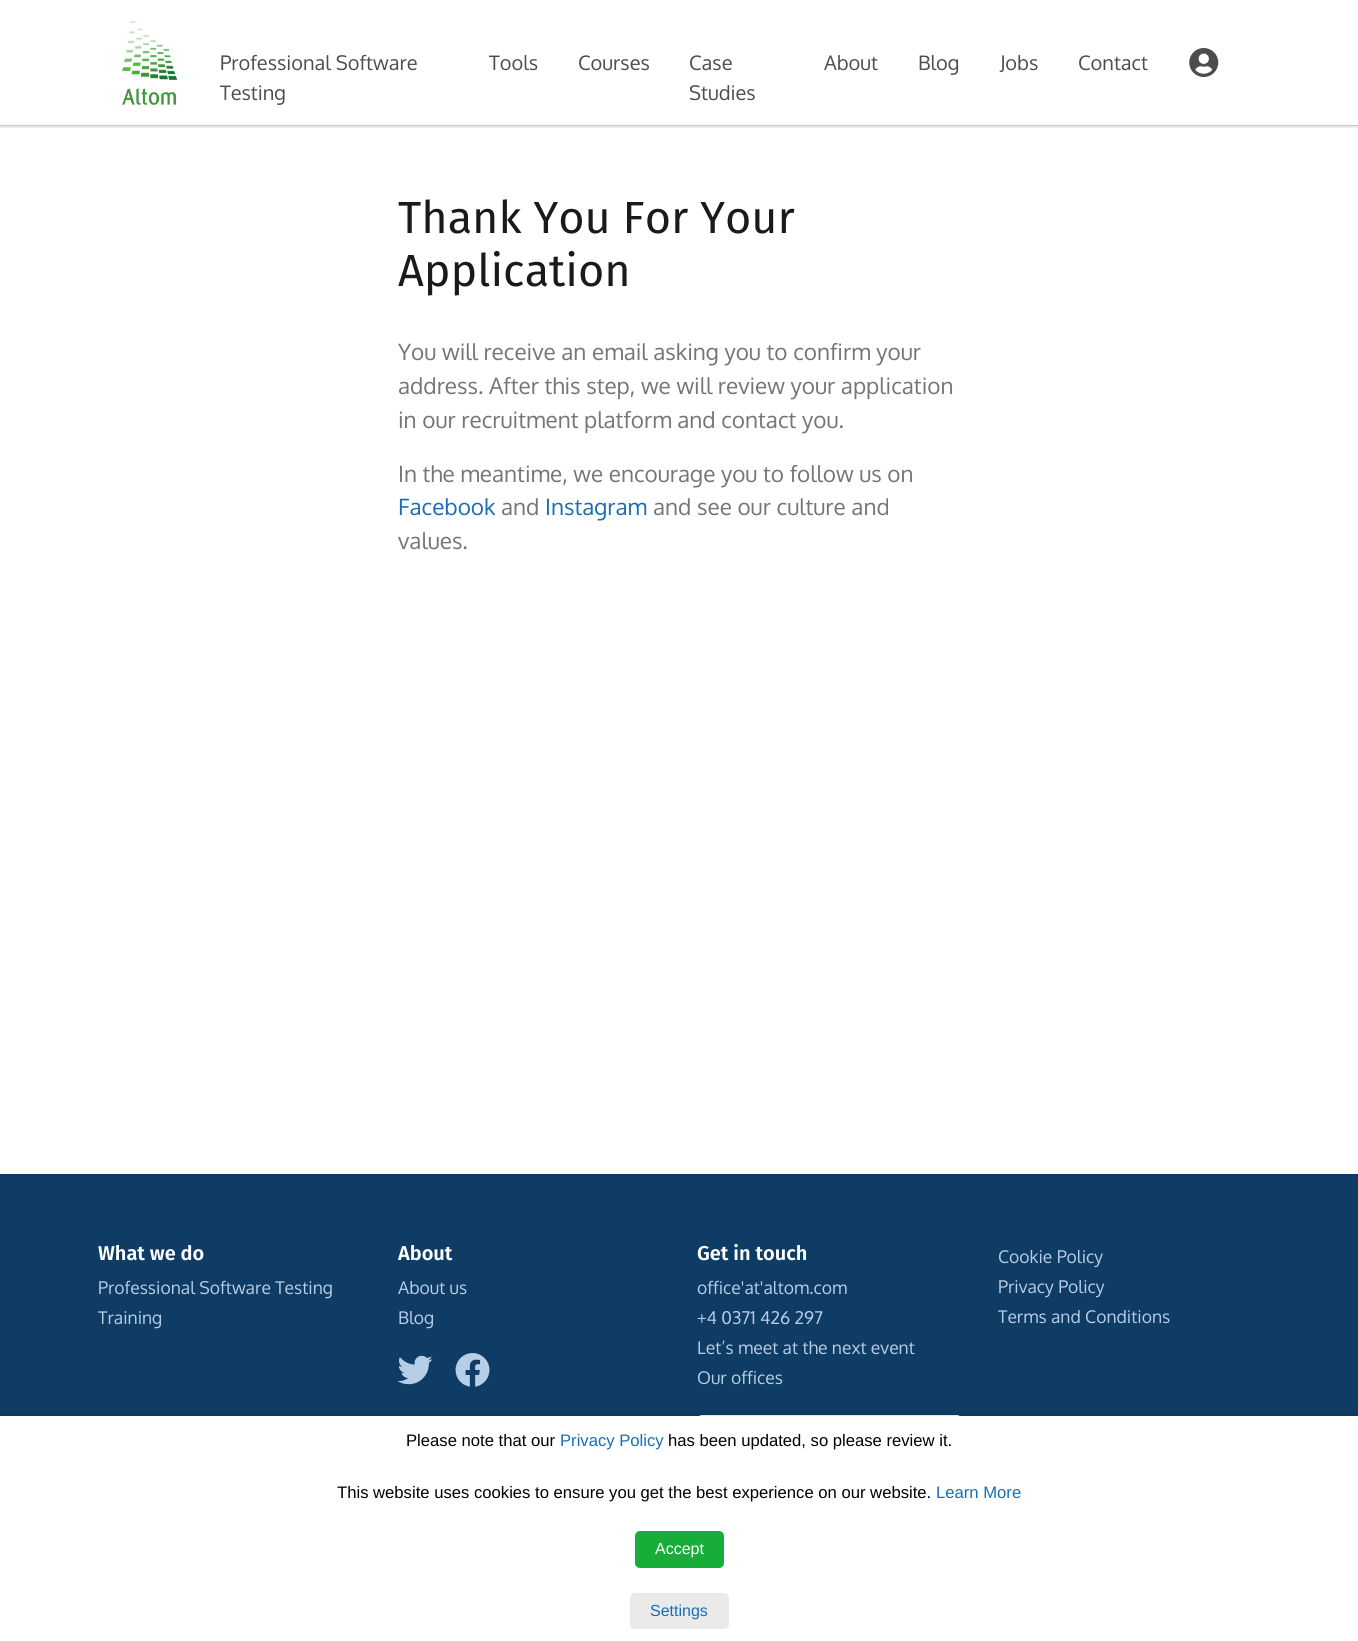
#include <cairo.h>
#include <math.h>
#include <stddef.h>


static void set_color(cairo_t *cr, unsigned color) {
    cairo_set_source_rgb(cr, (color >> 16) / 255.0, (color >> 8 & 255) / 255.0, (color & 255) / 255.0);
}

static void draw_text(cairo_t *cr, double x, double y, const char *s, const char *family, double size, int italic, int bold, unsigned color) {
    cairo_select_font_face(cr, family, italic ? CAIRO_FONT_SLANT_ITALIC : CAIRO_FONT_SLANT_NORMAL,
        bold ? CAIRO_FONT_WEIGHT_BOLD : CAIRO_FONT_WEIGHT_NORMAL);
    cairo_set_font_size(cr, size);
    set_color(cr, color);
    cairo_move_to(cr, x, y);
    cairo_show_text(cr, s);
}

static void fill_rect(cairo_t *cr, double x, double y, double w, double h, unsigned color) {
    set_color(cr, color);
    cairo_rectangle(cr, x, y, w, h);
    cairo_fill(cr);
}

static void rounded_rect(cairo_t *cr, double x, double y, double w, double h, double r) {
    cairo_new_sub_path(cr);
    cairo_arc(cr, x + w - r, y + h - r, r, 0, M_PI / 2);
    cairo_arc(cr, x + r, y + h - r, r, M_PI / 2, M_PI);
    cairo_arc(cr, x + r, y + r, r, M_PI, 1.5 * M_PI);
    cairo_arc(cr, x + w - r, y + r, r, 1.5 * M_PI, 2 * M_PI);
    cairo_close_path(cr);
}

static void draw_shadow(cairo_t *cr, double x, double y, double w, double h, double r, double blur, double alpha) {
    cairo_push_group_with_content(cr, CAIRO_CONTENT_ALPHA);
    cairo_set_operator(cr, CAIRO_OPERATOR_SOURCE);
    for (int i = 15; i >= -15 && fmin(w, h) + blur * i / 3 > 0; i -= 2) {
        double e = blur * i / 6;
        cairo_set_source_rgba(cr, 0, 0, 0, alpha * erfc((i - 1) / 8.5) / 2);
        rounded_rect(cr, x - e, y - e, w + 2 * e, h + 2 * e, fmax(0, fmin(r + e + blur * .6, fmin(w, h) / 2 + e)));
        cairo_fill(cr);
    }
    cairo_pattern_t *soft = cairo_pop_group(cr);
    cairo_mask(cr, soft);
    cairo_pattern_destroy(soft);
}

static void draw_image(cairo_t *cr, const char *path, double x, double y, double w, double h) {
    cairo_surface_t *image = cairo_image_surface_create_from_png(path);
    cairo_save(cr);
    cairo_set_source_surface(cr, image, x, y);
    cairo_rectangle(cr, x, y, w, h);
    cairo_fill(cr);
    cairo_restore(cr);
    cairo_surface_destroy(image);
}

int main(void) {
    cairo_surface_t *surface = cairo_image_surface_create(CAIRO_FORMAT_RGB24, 1358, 1641);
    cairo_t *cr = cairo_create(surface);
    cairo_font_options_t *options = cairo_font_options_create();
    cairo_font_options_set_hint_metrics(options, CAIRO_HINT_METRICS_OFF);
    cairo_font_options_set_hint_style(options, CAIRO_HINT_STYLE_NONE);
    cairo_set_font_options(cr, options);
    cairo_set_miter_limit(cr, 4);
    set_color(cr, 0xFFFFFF);
    cairo_paint(cr);
    cairo_save(cr);
    cairo_rectangle(cr, 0, 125, 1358, 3);
    cairo_clip(cr);
    set_color(cr, 0x000000);
    draw_shadow(cr, 0, 0, 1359, 125, 0, 2, 0.5);
    cairo_restore(cr);
    draw_image(cr, "assets/img1.png", 122, 21, 55, 84);
    draw_text(cr, 220, 70, "Professional Software", "Oxygen", 20, 0, 0, 0x4D4D4D);
    draw_text(cr, 220, 100, "Testing", "Oxygen", 20, 0, 0, 0x4D4D4D);
    draw_text(cr, 489, 70, "Tools", "Oxygen", 20, 0, 0, 0x4D4D4D);
    draw_text(cr, 578, 70, "Courses", "Oxygen", 20, 0, 0, 0x4D4D4D);
    draw_text(cr, 689, 70, "Case", "Oxygen", 20, 0, 0, 0x4D4D4D);
    draw_text(cr, 689, 100, "Studies", "Oxygen", 20, 0, 0, 0x4D4D4D);
    draw_text(cr, 824, 70, "About", "Oxygen", 20, 0, 0, 0x4D4D4D);
    draw_text(cr, 918, 70, "Blog", "Oxygen", 20, 0, 0, 0x4D4D4D);
    draw_text(cr, 1000, 70, "Jobs", "Oxygen", 20, 0, 0, 0x4D4D4D);
    draw_text(cr, 1078, 70, "Contact", "Oxygen", 20, 0, 0, 0x4D4D4D);
    draw_image(cr, "assets/img2.png", 1189, 48, 30, 29);
    draw_text(cr, 398, 233, "Thank You For Your", "Fira Sans", 45, 0, 0, 0x1A1A1A);
    draw_text(cr, 398, 286, "Application", "Fira Sans", 45, 0, 0, 0x1A1A1A);
    draw_text(cr, 398, 360, "You will receive an email asking you to confirm your", "Oxygen", 22.5, 0, 0, 0x757575);
    draw_text(cr, 398, 394, "address. After this step, we will review your application", "Oxygen", 22.5, 0, 0, 0x757575);
    draw_text(cr, 398, 428, "in our recruitment platform and contact you.", "Oxygen", 22.5, 0, 0, 0x757575);
    draw_text(cr, 398, 482, "In the meantime, we encourage you to follow us on", "Oxygen", 22.5, 0, 0, 0x757575);
    draw_text(cr, 398, 515, "Facebook", "Oxygen", 22.5, 0, 0, 0x196DB6);
    draw_text(cr, 501, 515, "and", "Oxygen", 22.5, 0, 0, 0x757575);
    draw_text(cr, 545, 515, "Instagram", "Oxygen", 22.5, 0, 0, 0x196DB6);
    draw_text(cr, 653, 515, "and see our culture and", "Oxygen", 22.5, 0, 0, 0x757575);
    draw_text(cr, 398, 549, "values.", "Oxygen", 22.5, 0, 0, 0x757575);
    fill_rect(cr, 0, 1174, 1358, 242, 0x0E3C64);
    draw_text(cr, 98, 1260, "What we do", "Fira Sans SemiBold", 20, 0, 0, 0xFFFFFF);
    draw_text(cr, 98, 1294, "Professional Software Testing", "Oxygen", 17.5, 0, 0, 0xB6CEE7);
    draw_text(cr, 98, 1324, "Training", "Oxygen", 17.5, 0, 0, 0xB6CEE7);
    draw_text(cr, 398, 1260, "About", "Fira Sans SemiBold", 20, 0, 0, 0xFFFFFF);
    draw_text(cr, 398, 1294, "About us", "Oxygen", 17.5, 0, 0, 0xB6CEE7);
    draw_text(cr, 398, 1324, "Blog", "Oxygen", 17.5, 0, 0, 0xB6CEE7);
    draw_image(cr, "assets/img3.png", 397, 1355, 36, 30);
    draw_image(cr, "assets/img4.png", 455, 1353, 35, 34);
    draw_text(cr, 697, 1260, "Get in touch", "Fira Sans SemiBold", 20, 0, 0, 0xFFFFFF);
    draw_text(cr, 697, 1294, "office'at'altom.com", "Oxygen", 17.5, 0, 0, 0xB6CEE7);
    draw_text(cr, 697, 1324, "+4 0371 426 297", "Oxygen", 17.5, 0, 0, 0xB6CEE7);
    draw_text(cr, 697, 1354, "Let’s meet at the next event", "Oxygen", 17.5, 0, 0, 0xB6CEE7);
    draw_text(cr, 697, 1384, "Our offices", "Oxygen", 17.5, 0, 0, 0xB6CEE7);
    set_color(cr, 0xEEEDEF);
    rounded_rect(cr, 698, 1415, 263, 40, 4);
    cairo_fill(cr);
    cairo_set_source_rgba(cr, 1, 1, 1, 0.15);
    cairo_new_path(cr);
    cairo_move_to(cr, 702, 1416);
    cairo_line_to(cr, 957, 1416);
    cairo_curve_to(cr, 959, 1416, 961, 1418, 961, 1420);
    cairo_line_to(cr, 961, 1419);
    cairo_curve_to(cr, 961, 1417, 959, 1415, 957, 1415);
    cairo_line_to(cr, 702, 1415);
    cairo_curve_to(cr, 700, 1415, 698, 1417, 698, 1419);
    cairo_line_to(cr, 698, 1420);
    cairo_curve_to(cr, 698, 1418, 699, 1416, 702, 1416);
    cairo_close_path(cr);
    cairo_fill(cr);
    draw_text(cr, 998, 1263, "Cookie Policy", "Oxygen", 17.5, 0, 0, 0xB6CEE7);
    draw_text(cr, 998, 1293, "Privacy Policy", "Oxygen", 17.5, 0, 0, 0xB6CEE7);
    draw_text(cr, 998, 1323, "Terms and Conditions", "Oxygen", 17.5, 0, 0, 0xB6CEE7);
    set_color(cr, 0x000000);
    draw_shadow(cr, 0, 1423, 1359, 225, 0, 6, 0.5);
    fill_rect(cr, 0, 1416, 1358, 225, 0xFFFFFF);
    draw_text(cr, 406, 1446, "Please note that our", "Liberation Sans", 16.65, 0, 0, 0x000000);
    draw_text(cr, 560, 1446, "Privacy Policy", "Liberation Sans", 16.65, 0, 0, 0x196DB6);
    draw_text(cr, 668, 1446, "has been updated, so please review it.", "Liberation Sans", 16.65, 0, 0, 0x000000);
    draw_text(cr, 337, 1498, "This website uses cookies to ensure you get the best experience on our website.", "Liberation Sans", 16.65, 0, 0, 0x000000);
    draw_text(cr, 936, 1498, "Learn More", "Liberation Sans", 16.65, 0, 0, 0x196DB6);
    set_color(cr, 0x17AD38);
    rounded_rect(cr, 635, 1531, 89, 37, 5);
    cairo_fill(cr);
    draw_text(cr, 655, 1554, "Accept", "Liberation Sans", 16, 0, 0, 0xFFFFFF);
    set_color(cr, 0xEAEAEA);
    rounded_rect(cr, 630, 1593, 99, 36, 5);
    cairo_fill(cr);
    draw_text(cr, 650, 1616, "Settings", "Liberation Sans", 16, 0, 0, 0x196DB6);
    cairo_surface_write_to_png(surface, "output.png");
    cairo_font_options_destroy(options);
    cairo_destroy(cr);
    cairo_surface_destroy(surface);
    return 0;
}
